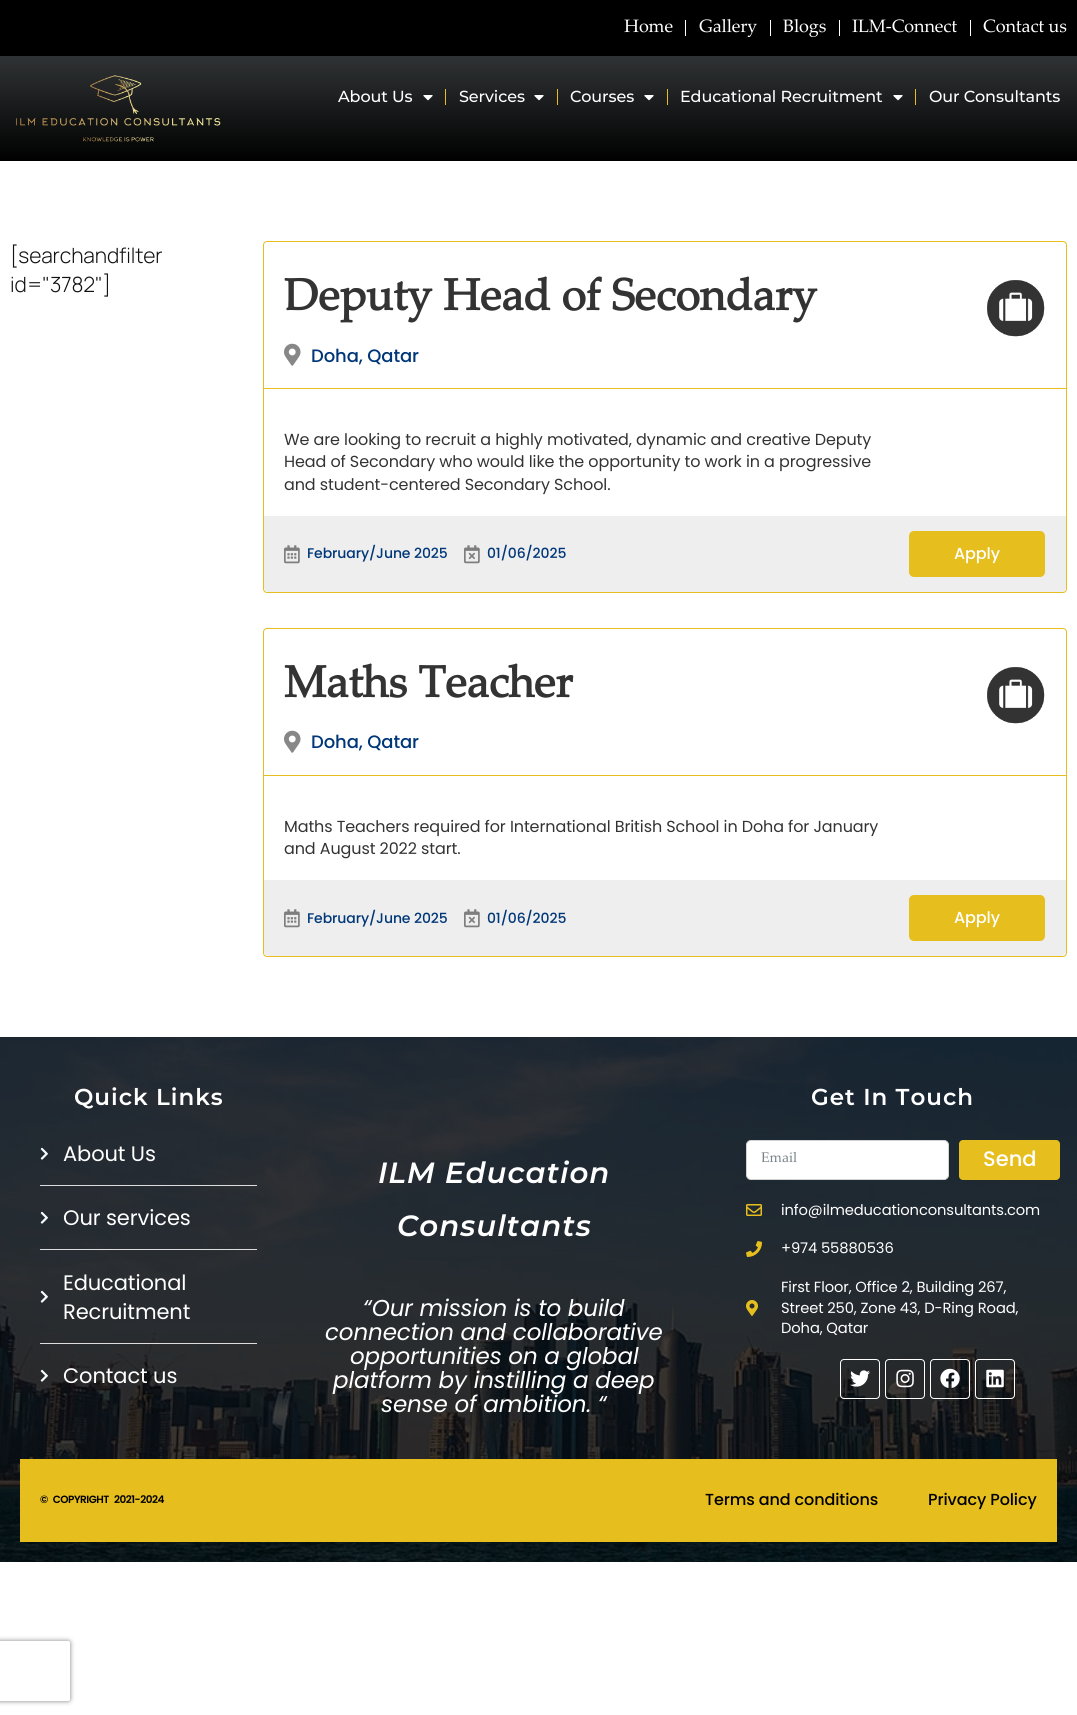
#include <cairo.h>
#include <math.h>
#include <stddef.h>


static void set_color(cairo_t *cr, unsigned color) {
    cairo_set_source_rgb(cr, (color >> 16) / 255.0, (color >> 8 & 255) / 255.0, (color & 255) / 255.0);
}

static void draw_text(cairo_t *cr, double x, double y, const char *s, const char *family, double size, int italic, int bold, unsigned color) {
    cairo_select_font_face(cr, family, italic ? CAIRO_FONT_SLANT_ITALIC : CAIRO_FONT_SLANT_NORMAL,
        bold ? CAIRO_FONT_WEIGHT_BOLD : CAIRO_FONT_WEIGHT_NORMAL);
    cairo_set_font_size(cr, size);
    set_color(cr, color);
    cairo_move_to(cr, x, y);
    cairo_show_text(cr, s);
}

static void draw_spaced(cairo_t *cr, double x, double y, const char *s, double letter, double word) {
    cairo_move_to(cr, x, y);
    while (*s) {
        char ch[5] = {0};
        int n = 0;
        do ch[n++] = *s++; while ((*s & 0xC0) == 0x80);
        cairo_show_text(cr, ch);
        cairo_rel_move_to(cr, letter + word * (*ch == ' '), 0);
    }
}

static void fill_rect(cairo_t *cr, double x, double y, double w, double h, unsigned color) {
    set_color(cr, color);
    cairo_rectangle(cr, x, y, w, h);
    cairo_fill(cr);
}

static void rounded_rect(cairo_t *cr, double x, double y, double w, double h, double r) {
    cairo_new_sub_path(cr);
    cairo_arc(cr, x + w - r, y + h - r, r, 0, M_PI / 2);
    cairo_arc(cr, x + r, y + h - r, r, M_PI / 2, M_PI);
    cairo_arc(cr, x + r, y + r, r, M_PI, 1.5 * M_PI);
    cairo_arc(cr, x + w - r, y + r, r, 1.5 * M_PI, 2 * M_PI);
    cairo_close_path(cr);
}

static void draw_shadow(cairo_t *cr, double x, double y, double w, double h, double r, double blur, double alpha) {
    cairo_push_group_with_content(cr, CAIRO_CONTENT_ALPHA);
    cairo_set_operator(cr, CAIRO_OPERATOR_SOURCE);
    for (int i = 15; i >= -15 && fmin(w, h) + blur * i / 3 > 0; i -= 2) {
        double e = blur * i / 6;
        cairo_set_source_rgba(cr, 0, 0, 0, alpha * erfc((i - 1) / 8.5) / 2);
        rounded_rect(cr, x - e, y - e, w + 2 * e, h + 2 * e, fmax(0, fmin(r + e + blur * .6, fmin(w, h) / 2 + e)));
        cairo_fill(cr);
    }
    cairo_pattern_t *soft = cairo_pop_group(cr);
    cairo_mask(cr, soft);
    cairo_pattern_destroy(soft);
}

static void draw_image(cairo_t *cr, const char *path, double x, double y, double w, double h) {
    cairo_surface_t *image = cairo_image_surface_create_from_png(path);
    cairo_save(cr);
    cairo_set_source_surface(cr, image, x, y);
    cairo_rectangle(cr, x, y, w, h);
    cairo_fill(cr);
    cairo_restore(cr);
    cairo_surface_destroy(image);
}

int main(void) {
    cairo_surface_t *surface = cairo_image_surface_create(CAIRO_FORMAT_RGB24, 1077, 1715);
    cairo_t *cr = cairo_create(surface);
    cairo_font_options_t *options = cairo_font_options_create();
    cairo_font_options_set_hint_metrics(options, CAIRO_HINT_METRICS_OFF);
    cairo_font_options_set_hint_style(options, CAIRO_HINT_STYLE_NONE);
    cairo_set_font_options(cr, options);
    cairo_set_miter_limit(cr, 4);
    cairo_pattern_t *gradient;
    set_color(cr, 0xFFFFFF);
    cairo_paint(cr);
    fill_rect(cr, 0, 0, 1077, 56, 0x000000);
    cairo_select_font_face(cr, "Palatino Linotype", CAIRO_FONT_SLANT_NORMAL, CAIRO_FONT_WEIGHT_NORMAL);
    cairo_set_font_size(cr, 18);
    set_color(cr, 0xFFFFFF);
    draw_spaced(cr, 624, 32, "Home", -0.1, 0);
    fill_rect(cr, 685, 20, 1, 16, 0xFFFFFF);
    draw_spaced(cr, 699, 32, "Gallery", -0.1, 0);
    fill_rect(cr, 770, 20, 1, 16, 0xFFFFFF);
    draw_spaced(cr, 783, 32, "Blogs", -0.1, 0);
    fill_rect(cr, 839, 20, 1, 16, 0xFFFFFF);
    draw_spaced(cr, 852, 32, "ILM-Connect", -0.1, 0);
    fill_rect(cr, 970, 20, 1, 16, 0xFFFFFF);
    draw_spaced(cr, 983, 32, "Contact us", -0.1, 0);
    gradient = cairo_pattern_create_linear(539, 56, 539, 161);
    cairo_pattern_add_color_stop_rgba(gradient, 0, 0.188, 0.2, 0.208, 1);
    cairo_pattern_add_color_stop_rgba(gradient, 1, 0, 0, 0, 1);
    cairo_set_source(cr, gradient);
    cairo_pattern_destroy(gradient);
    cairo_rectangle(cr, 0, 56, 1077, 105);
    cairo_fill(cr);
    draw_image(cr, "assets/img1.png", 16, 75, 205, 67);
    cairo_select_font_face(cr, "Montserrat Medium", CAIRO_FONT_SLANT_NORMAL, CAIRO_FONT_WEIGHT_NORMAL);
    cairo_set_font_size(cr, 16);
    set_color(cr, 0xFFFFFF);
    draw_spaced(cr, 338, 102, "About Us", -0.1, 0);
    draw_image(cr, "assets/img2.png", 423, 95, 10, 6);
    fill_rect(cr, 445, 89, 1, 16, 0xE6BE1E);
    set_color(cr, 0xFFFFFF);
    draw_spaced(cr, 459, 102, "Services", -0.1, 0);
    draw_image(cr, "assets/img2.png", 534, 95, 10, 6);
    fill_rect(cr, 557, 89, 1, 16, 0xE6BE1E);
    set_color(cr, 0xFFFFFF);
    draw_spaced(cr, 570, 102, "Courses", -0.1, 0);
    draw_image(cr, "assets/img2.png", 644, 95, 10, 6);
    fill_rect(cr, 667, 89, 1, 16, 0xE6BE1E);
    set_color(cr, 0xFFFFFF);
    draw_spaced(cr, 680, 102, "Educational Recruitment", -0.1, 0);
    draw_image(cr, "assets/img2.png", 893, 95, 10, 6);
    fill_rect(cr, 915, 89, 1, 16, 0xE6BE1E);
    set_color(cr, 0xFFFFFF);
    draw_spaced(cr, 929, 102, "Our Consultants", -0.1, 0);
    cairo_select_font_face(cr, "Manrope Light", CAIRO_FONT_SLANT_NORMAL, CAIRO_FONT_WEIGHT_NORMAL);
    cairo_set_font_size(cr, 21);
    set_color(cr, 0x111111);
    draw_spaced(cr, 10, 263, "[searchandfilter", -0.1, 0);
    draw_spaced(cr, 10, 292, "id=\"3782\"]", -0.1, 0);
    rounded_rect(cr, 263.5, 241.5, 803, 351, 3.5);
    set_color(cr, 0xE6BE1E);
    cairo_set_line_width(cr, 1);
    cairo_stroke(cr);
    cairo_select_font_face(cr, "Palatino Linotype", CAIRO_FONT_SLANT_NORMAL, CAIRO_FONT_WEIGHT_BOLD);
    cairo_set_font_size(cr, 44.5);
    set_color(cr, 0x333333);
    draw_spaced(cr, 284, 310, "Deputy Head of Secondary", -0.1, 0);
    draw_image(cr, "assets/img3.png", 284, 343, 17, 23);
    cairo_select_font_face(cr, "Poppins Medium", CAIRO_FONT_SLANT_NORMAL, CAIRO_FONT_WEIGHT_NORMAL);
    cairo_set_font_size(cr, 18);
    set_color(cr, 0x003778);
    draw_spaced(cr, 311, 362, "Doha, Qatar", -0.1, 0);
    draw_image(cr, "assets/img4.png", 987, 280, 58, 57);
    fill_rect(cr, 264, 388, 802, 1, 0xE6BE1E);
    cairo_select_font_face(cr, "Poppins", CAIRO_FONT_SLANT_NORMAL, CAIRO_FONT_WEIGHT_NORMAL);
    cairo_set_font_size(cr, 16);
    set_color(cr, 0x333333);
    draw_spaced(cr, 284, 445, "We are looking to recruit a highly motivated, dynamic and creative Deputy", -0.1, 0);
    draw_spaced(cr, 284, 467, "Head of Secondary who would like the opportunity to work in a progressive", -0.1, 0);
    draw_spaced(cr, 284, 490, "and student-centered Secondary School.", -0.1, 0);
    set_color(cr, 0xEEEEEE);
    cairo_new_path(cr);
    cairo_move_to(cr, 264, 516);
    cairo_line_to(cr, 1066, 516);
    cairo_line_to(cr, 1066, 588);
    cairo_curve_to(cr, 1066, 590, 1064, 592, 1062, 592);
    cairo_line_to(cr, 268, 592);
    cairo_curve_to(cr, 266, 592, 264, 590, 264, 588);
    cairo_close_path(cr);
    cairo_fill(cr);
    draw_image(cr, "assets/img5.png", 284, 545, 16, 19);
    cairo_select_font_face(cr, "Poppins Medium", CAIRO_FONT_SLANT_NORMAL, CAIRO_FONT_WEIGHT_NORMAL);
    cairo_set_font_size(cr, 14);
    set_color(cr, 0x003778);
    draw_spaced(cr, 307, 558, "February/June 2025", -0.1, 0);
    draw_image(cr, "assets/img6.png", 464, 545, 16, 19);
    draw_spaced(cr, 487, 558, "01/06/2025", -0.1, 0);
    set_color(cr, 0xE6BE1E);
    rounded_rect(cr, 909, 531, 136, 46, 5);
    cairo_fill(cr);
    cairo_set_font_size(cr, 16);
    set_color(cr, 0xFFFFFF);
    draw_spaced(cr, 954, 559, "Apply", -0.1, 0);
    rounded_rect(cr, 263.5, 628.5, 803, 328, 3.5);
    set_color(cr, 0xE6BE1E);
    cairo_stroke(cr);
    cairo_select_font_face(cr, "Palatino Linotype", CAIRO_FONT_SLANT_NORMAL, CAIRO_FONT_WEIGHT_BOLD);
    cairo_set_font_size(cr, 44.5);
    set_color(cr, 0x333333);
    draw_spaced(cr, 284, 697, "Maths Teacher", -0.1, 0);
    draw_image(cr, "assets/img3.png", 284, 730, 17, 23);
    cairo_select_font_face(cr, "Poppins Medium", CAIRO_FONT_SLANT_NORMAL, CAIRO_FONT_WEIGHT_NORMAL);
    cairo_set_font_size(cr, 18);
    set_color(cr, 0x003778);
    draw_spaced(cr, 311, 748, "Doha, Qatar", -0.1, 0);
    draw_image(cr, "assets/img4.png", 987, 667, 58, 57);
    fill_rect(cr, 264, 775, 802, 1, 0xE6BE1E);
    cairo_select_font_face(cr, "Poppins", CAIRO_FONT_SLANT_NORMAL, CAIRO_FONT_WEIGHT_NORMAL);
    cairo_set_font_size(cr, 16);
    set_color(cr, 0x333333);
    draw_spaced(cr, 284, 832, "Maths Teachers required for International British School in Doha for January", -0.1, 0);
    draw_spaced(cr, 284, 854, "and August 2022 start.", -0.1, 0);
    set_color(cr, 0xEEEEEE);
    cairo_new_path(cr);
    cairo_move_to(cr, 264, 880);
    cairo_line_to(cr, 1066, 880);
    cairo_line_to(cr, 1066, 952);
    cairo_curve_to(cr, 1066, 954, 1064, 956, 1062, 956);
    cairo_line_to(cr, 268, 956);
    cairo_curve_to(cr, 266, 956, 264, 954, 264, 952);
    cairo_close_path(cr);
    cairo_fill(cr);
    draw_image(cr, "assets/img5.png", 284, 909, 16, 19);
    cairo_select_font_face(cr, "Poppins Medium", CAIRO_FONT_SLANT_NORMAL, CAIRO_FONT_WEIGHT_NORMAL);
    cairo_set_font_size(cr, 14);
    set_color(cr, 0x003778);
    draw_spaced(cr, 307, 923, "February/June 2025", -0.1, 0);
    draw_image(cr, "assets/img6.png", 464, 909, 16, 19);
    draw_spaced(cr, 487, 923, "01/06/2025", -0.1, 0);
    set_color(cr, 0xE6BE1E);
    rounded_rect(cr, 909, 895, 136, 46, 5);
    cairo_fill(cr);
    cairo_set_font_size(cr, 16);
    set_color(cr, 0xFFFFFF);
    draw_spaced(cr, 954, 923, "Apply", -0.1, 0);
    draw_image(cr, "assets/img7.png", 0, 1037, 1077, 525);
    cairo_select_font_face(cr, "Montserrat SemiBold", CAIRO_FONT_SLANT_NORMAL, CAIRO_FONT_WEIGHT_NORMAL);
    cairo_set_font_size(cr, 23);
    draw_spaced(cr, 74, 1105, "Quick Links", 1, 0);
    draw_image(cr, "assets/img8.png", 40, 1147, 8, 13);
    cairo_select_font_face(cr, "Poppins", CAIRO_FONT_SLANT_NORMAL, CAIRO_FONT_WEIGHT_NORMAL);
    cairo_set_font_size(cr, 21);
    draw_spaced(cr, 63, 1161, "About Us", -0.1, 0);
    fill_rect(cr, 40, 1185, 217, 1, 0xDDDDDD);
    draw_image(cr, "assets/img9.png", 40, 1211, 8, 13);
    set_color(cr, 0xFFFFFF);
    draw_spaced(cr, 63, 1225, "Our services", -0.1, 0);
    fill_rect(cr, 40, 1249, 217, 1, 0xDDDDDD);
    draw_image(cr, "assets/img10.png", 40, 1290, 8, 13);
    set_color(cr, 0xFFFFFF);
    draw_spaced(cr, 63, 1290, "Educational", -0.1, 0);
    draw_spaced(cr, 63, 1319, "Recruitment", -0.1, 0);
    fill_rect(cr, 40, 1343, 217, 1, 0xDDDDDD);
    draw_image(cr, "assets/img11.png", 40, 1369, 8, 13);
    set_color(cr, 0xFFFFFF);
    draw_spaced(cr, 63, 1383, "Contact us", -0.1, 0);
    cairo_select_font_face(cr, "Montserrat SemiBold", CAIRO_FONT_SLANT_ITALIC, CAIRO_FONT_WEIGHT_NORMAL);
    cairo_set_font_size(cr, 29.25);
    draw_spaced(cr, 378, 1183, "ILM Education", 1, 0);
    draw_spaced(cr, 397, 1236, "Consultants", 1, 0);
    cairo_select_font_face(cr, "Poppins", CAIRO_FONT_SLANT_ITALIC, CAIRO_FONT_WEIGHT_NORMAL);
    cairo_set_font_size(cr, 23);
    draw_spaced(cr, 363, 1316, "“Our mission is to build", -0.1, 0);
    draw_spaced(cr, 325, 1340, "connection and collaborative", -0.1, 0);
    draw_spaced(cr, 350, 1364, "opportunities on a global", -0.1, 0);
    draw_spaced(cr, 333, 1388, "platform by instilling a deep", -0.1, 0);
    draw_spaced(cr, 381, 1412, "sense of ambition. “", -0.1, 0);
    cairo_select_font_face(cr, "Montserrat SemiBold", CAIRO_FONT_SLANT_NORMAL, CAIRO_FONT_WEIGHT_NORMAL);
    draw_spaced(cr, 811, 1105, "Get In Touch", 1, 0);
    rounded_rect(cr, 746.5, 1140.5, 202, 39, 4.5);
    cairo_fill_preserve(cr);
    set_color(cr, 0xD3D3D3);
    cairo_stroke(cr);
    draw_text(cr, 761, 1162, "Email", "Palatino Linotype", 14, 0, 0, 0x768389);
    set_color(cr, 0xE6BE1E);
    rounded_rect(cr, 959, 1140, 101, 40, 4);
    cairo_fill(cr);
    draw_text(cr, 983, 1166, "Send", "Poppins Medium", 21, 0, 0, 0xFFFFFF);
    cairo_save(cr);
    cairo_set_fill_rule(cr, CAIRO_FILL_RULE_EVEN_ODD);
    cairo_new_path(cr);
    cairo_move_to(cr, 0, 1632);
    cairo_line_to(cr, 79, 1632);
    cairo_line_to(cr, 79, 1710);
    cairo_line_to(cr, 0, 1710);
    cairo_close_path(cr);
    cairo_move_to(cr, -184, 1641);
    cairo_line_to(cr, 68, 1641);
    cairo_curve_to(cr, 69, 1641, 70, 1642, 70, 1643);
    cairo_line_to(cr, 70, 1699);
    cairo_curve_to(cr, 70, 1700, 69, 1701, 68, 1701);
    cairo_line_to(cr, -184, 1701);
    cairo_curve_to(cr, -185, 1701, -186, 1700, -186, 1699);
    cairo_line_to(cr, -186, 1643);
    cairo_curve_to(cr, -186, 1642, -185, 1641, -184, 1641);
    cairo_close_path(cr);
    cairo_clip(cr);
    set_color(cr, 0x808080);
    draw_shadow(cr, -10, 1641, 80, 60, 2, 2.5, 1);
    cairo_restore(cr);
    draw_image(cr, "assets/img12.png", 746, 1204, 16, 12);
    cairo_select_font_face(cr, "Poppins", CAIRO_FONT_SLANT_NORMAL, CAIRO_FONT_WEIGHT_NORMAL);
    cairo_set_font_size(cr, 14.7);
    draw_spaced(cr, 781, 1215, "info@ilmeducationconsultants.com", -0.1, 0);
    draw_image(cr, "assets/img13.png", 746, 1241, 16, 16);
    draw_spaced(cr, 781, 1253, "+974 55880536", -0.1, 0);
    draw_image(cr, "assets/img14.png", 746, 1300, 12, 16);
    draw_spaced(cr, 781, 1292, "First Floor, Office 2, Building 267,", -0.1, 0);
    draw_spaced(cr, 781, 1313, "Street 250, Zone 43, D-Ring Road,", -0.1, 0);
    draw_spaced(cr, 781, 1333, "Doha, Qatar", -0.1, 0);
    rounded_rect(cr, 840.5, 1359.5, 39, 39, 3.5);
    cairo_stroke(cr);
    draw_image(cr, "assets/img15.png", 850, 1370, 20, 17);
    rounded_rect(cr, 885.5, 1359.5, 39, 39, 3.5);
    cairo_stroke(cr);
    draw_image(cr, "assets/img16.png", 896, 1369, 18, 19);
    rounded_rect(cr, 930.5, 1359.5, 39, 39, 3.5);
    cairo_stroke(cr);
    draw_image(cr, "assets/img17.png", 940, 1368, 20, 20);
    rounded_rect(cr, 975.5, 1359.5, 39, 39, 3.5);
    cairo_stroke(cr);
    draw_image(cr, "assets/img18.png", 986, 1369, 18, 19);
    fill_rect(cr, 20, 1459, 1037, 83, 0xE6BE1E);
    cairo_select_font_face(cr, "Poppins SemiBold", CAIRO_FONT_SLANT_NORMAL, CAIRO_FONT_WEIGHT_NORMAL);
    cairo_set_font_size(cr, 10.5);
    set_color(cr, 0x000000);
    draw_spaced(cr, 40, 1503, "© COPYRIGHT 2021-2024", -0.5, 3);
    cairo_select_font_face(cr, "Poppins Medium", CAIRO_FONT_SLANT_NORMAL, CAIRO_FONT_WEIGHT_NORMAL);
    cairo_set_font_size(cr, 16);
    draw_spaced(cr, 705, 1505, "Terms and conditions", -0.1, 0);
    draw_spaced(cr, 928, 1505, "Privacy Policy", -0.1, 0);
    cairo_surface_write_to_png(surface, "output.png");
    cairo_font_options_destroy(options);
    cairo_destroy(cr);
    cairo_surface_destroy(surface);
    return 0;
}
